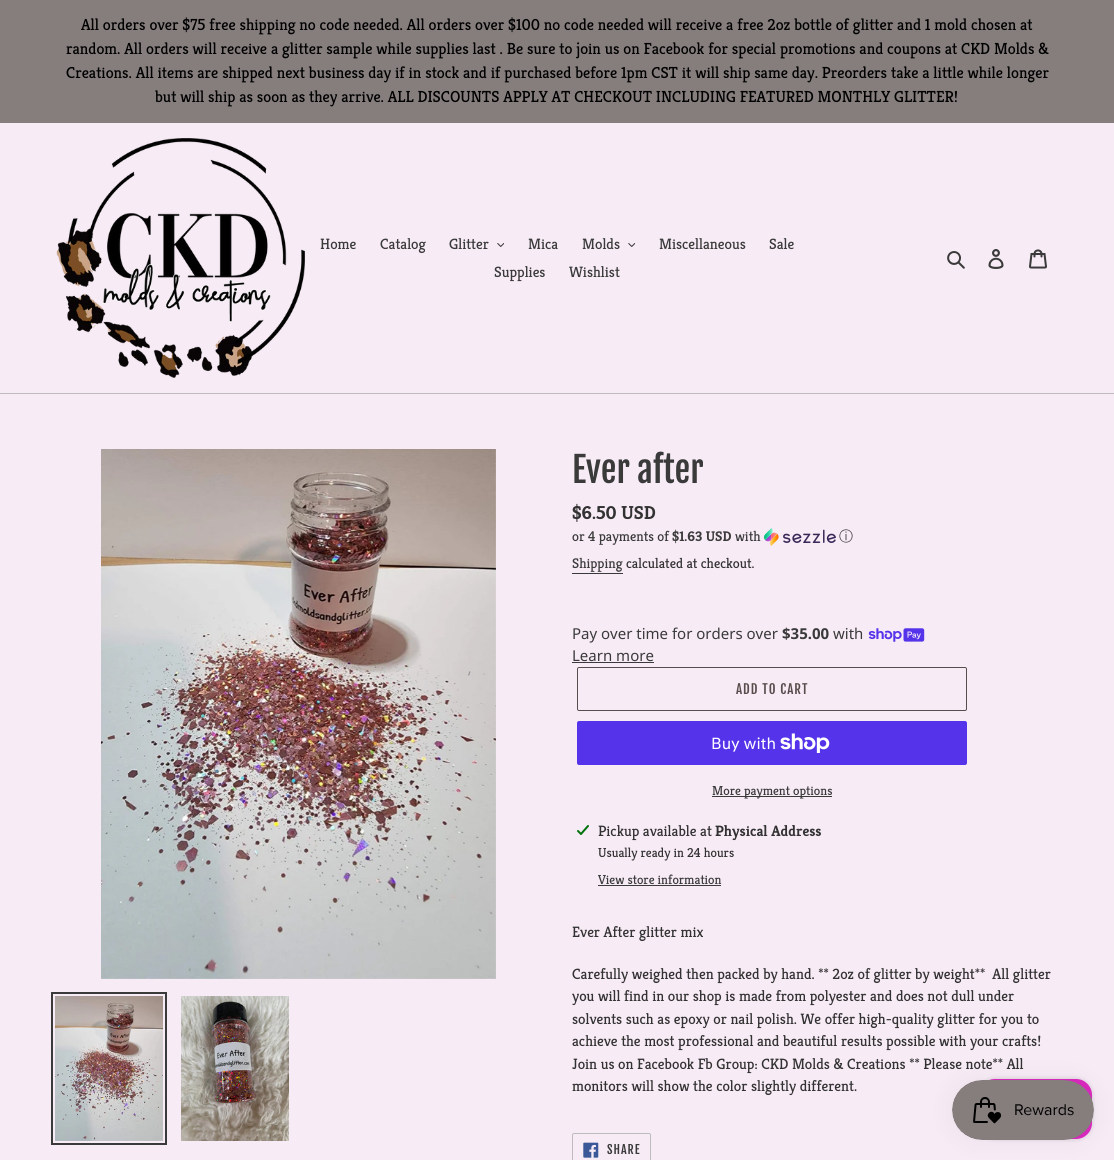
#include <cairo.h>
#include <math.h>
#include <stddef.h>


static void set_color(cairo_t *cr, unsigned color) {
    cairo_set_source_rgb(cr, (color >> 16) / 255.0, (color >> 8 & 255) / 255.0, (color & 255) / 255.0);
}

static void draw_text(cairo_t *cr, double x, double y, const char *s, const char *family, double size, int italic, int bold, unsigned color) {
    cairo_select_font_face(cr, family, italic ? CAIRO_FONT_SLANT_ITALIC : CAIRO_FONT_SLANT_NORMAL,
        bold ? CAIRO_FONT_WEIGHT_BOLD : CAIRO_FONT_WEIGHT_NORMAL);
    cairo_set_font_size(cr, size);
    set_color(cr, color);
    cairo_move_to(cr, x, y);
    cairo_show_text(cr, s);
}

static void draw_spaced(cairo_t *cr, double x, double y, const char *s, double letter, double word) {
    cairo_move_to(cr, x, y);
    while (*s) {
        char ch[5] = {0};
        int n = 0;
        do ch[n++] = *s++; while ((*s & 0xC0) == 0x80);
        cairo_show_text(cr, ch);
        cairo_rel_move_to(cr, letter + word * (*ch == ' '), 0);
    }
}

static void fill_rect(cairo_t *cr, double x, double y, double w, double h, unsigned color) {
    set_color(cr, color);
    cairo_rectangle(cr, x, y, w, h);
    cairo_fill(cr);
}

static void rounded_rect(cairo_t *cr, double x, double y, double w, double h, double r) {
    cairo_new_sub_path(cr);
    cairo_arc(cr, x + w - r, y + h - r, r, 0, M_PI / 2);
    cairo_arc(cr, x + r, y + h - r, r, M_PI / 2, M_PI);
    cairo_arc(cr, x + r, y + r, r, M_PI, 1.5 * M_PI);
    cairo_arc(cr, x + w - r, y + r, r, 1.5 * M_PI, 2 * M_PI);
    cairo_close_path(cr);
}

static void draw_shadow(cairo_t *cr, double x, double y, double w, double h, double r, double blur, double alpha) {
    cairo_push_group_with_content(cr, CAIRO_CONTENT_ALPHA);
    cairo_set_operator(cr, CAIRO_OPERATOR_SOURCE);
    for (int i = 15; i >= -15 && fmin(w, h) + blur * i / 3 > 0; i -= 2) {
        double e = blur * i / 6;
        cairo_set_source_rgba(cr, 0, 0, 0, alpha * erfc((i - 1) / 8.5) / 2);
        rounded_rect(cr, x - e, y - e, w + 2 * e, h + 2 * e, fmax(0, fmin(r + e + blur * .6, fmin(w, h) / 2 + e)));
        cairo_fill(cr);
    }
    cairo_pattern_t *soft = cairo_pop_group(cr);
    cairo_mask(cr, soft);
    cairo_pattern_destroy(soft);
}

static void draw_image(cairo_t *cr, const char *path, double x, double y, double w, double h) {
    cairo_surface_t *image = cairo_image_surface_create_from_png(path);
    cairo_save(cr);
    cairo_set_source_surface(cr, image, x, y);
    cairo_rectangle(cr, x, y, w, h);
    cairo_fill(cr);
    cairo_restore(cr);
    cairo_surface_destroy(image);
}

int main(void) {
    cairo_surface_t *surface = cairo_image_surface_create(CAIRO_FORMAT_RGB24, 1114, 1160);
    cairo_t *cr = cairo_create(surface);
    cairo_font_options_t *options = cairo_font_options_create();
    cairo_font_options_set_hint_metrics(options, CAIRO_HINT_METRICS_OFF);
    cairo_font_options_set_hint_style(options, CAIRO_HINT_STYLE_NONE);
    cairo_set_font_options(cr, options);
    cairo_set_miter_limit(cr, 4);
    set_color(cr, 0xF7EBF6);
    cairo_paint(cr);
    fill_rect(cr, 0, 0, 1114, 123, 0x867D7D);
    draw_text(cr, 81, 30, "All orders over $75 free shipping no code needed. All orders over $100 no code needed will receive a free 2oz bottle of glitter and 1 mold chosen at", "Kreon", 16, 0, 0, 0x000000);
    draw_text(cr, 66, 54, "random. All orders will receive a glitter sample while supplies last . Be sure to join us on Facebook for special promotions and coupons at CKD Molds &", "Kreon", 16, 0, 0, 0x000000);
    draw_text(cr, 66, 78, "Creations. All items are shipped next business day if in stock and if purchased before 1pm CST it will ship same day. Preorders take a little while longer", "Kreon", 16, 0, 0, 0x000000);
    draw_text(cr, 155, 102, "but will ship as soon as they arrive. ALL DISCOUNTS APPLY AT CHECKOUT INCLUDING FEATURED MONTHLY GLITTER!", "Kreon", 16, 0, 0, 0x000000);
    fill_rect(cr, 0, 393, 1114, 1, 0xBCBCBC);
    draw_image(cr, "assets/img1.png", 56, 138, 249, 240);
    draw_text(cr, 320, 249, "Home", "Kreon", 15, 0, 0, 0x3A3A3A);
    draw_text(cr, 380, 249, "Catalog", "Kreon", 15, 0, 0, 0x3A3A3A);
    draw_text(cr, 449, 249, "Glitter", "Kreon", 15, 0, 0, 0x3A3A3A);
    draw_image(cr, "assets/img2.png", 497, 243, 7, 4);
    draw_text(cr, 528, 249, "Mica", "Kreon", 15, 0, 0, 0x3A3A3A);
    draw_text(cr, 582, 249, "Molds", "Kreon", 15, 0, 0, 0x3A3A3A);
    draw_image(cr, "assets/img2.png", 628, 243, 7, 4);
    draw_text(cr, 659, 249, "Miscellaneous", "Kreon", 15, 0, 0, 0x3A3A3A);
    draw_text(cr, 769, 249, "Sale", "Kreon", 15, 0, 0, 0x3A3A3A);
    draw_text(cr, 494, 277, "Supplies", "Kreon", 15, 0, 0, 0x3A3A3A);
    draw_text(cr, 569, 277, "Wishlist", "Kreon", 15, 0, 0, 0x3A3A3A);
    draw_image(cr, "assets/img3.png", 947, 251, 18, 18);
    draw_image(cr, "assets/img4.png", 988, 249, 16, 20);
    draw_image(cr, "assets/img5.png", 1029, 249, 18, 20);
    draw_image(cr, "assets/img6.png", 101, 449, 395, 530);
    cairo_rectangle(cr, 52, 993, 114, 151);
    cairo_stroke(cr);
    draw_image(cr, "assets/img7.png", 55, 996, 108, 145);
    draw_image(cr, "assets/img8.png", 181, 996, 108, 145);
    draw_text(cr, 572, 483, "Ever after", "Fjalla One", 35, 0, 0, 0x3A3A3A);
    draw_text(cr, 572, 519, "$6.50 USD", "Kreon", 18.75, 0, 1, 0x333232);
    draw_text(cr, 572, 541, "or 4 payments of", "Kreon", 14, 0, 0, 0x3A3A3A);
    draw_text(cr, 672, 541, "$1.63 USD", "Kreon", 14, 0, 1, 0x3A3A3A);
    draw_text(cr, 735, 541, "with", "Kreon", 14, 0, 0, 0x3A3A3A);
    draw_image(cr, "assets/img9.png", 764, 528, 72, 18);
    draw_text(cr, 839, 541, "ⓘ", "WenQuanYi Zen Hei Medium", 14, 0, 0, 0x3A3A3A);
    draw_text(cr, 572, 568, "Shipping", "Kreon", 14, 0, 0, 0x3A3A3A);
    fill_rect(cr, 572, 573, 51, 1, 0x3A3A3A);
    draw_text(cr, 626, 568, "calculated at checkout.", "Kreon", 14, 0, 0, 0x333232);
    draw_text(cr, 572, 639, "Pay over time for orders over", "Noto Sans", 15, 0, 0, 0x3A3A3A);
    draw_text(cr, 782, 639, "$35.00", "Noto Sans", 15, 0, 1, 0x3A3A3A);
    draw_text(cr, 833, 639, "with", "Noto Sans", 15, 0, 0, 0x3A3A3A);
    draw_image(cr, "assets/img10.png", 868, 628, 57, 14);
    draw_text(cr, 572, 661, "Learn more", "Noto Sans", 15, 0, 0, 0x3A3A3A);
    fill_rect(cr, 572, 662, 82, 1, 0x3A3A3A);
    rounded_rect(cr, 577.5, 667.5, 389, 43, 1.5);
    set_color(cr, 0x594C4C);
    cairo_set_line_width(cr, 1);
    cairo_stroke(cr);
    cairo_select_font_face(cr, "Fjalla One", CAIRO_FONT_SLANT_NORMAL, CAIRO_FONT_WEIGHT_NORMAL);
    cairo_set_font_size(cr, 13);
    draw_spaced(cr, 736, 694, "ADD TO CART", 1, 0);
    set_color(cr, 0x5433EB);
    rounded_rect(cr, 577, 721, 390, 44, 2);
    cairo_fill(cr);
    draw_text(cr, 711, 749, "Buy with", "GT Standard", 16, 0, 0, 0xFFFFFF);
    draw_image(cr, "assets/img11.png", 780, 733, 50, 20);
    fill_rect(cr, 712, 796, 120, 1, 0x3A3A3A);
    draw_text(cr, 712, 795, "More payment options", "Kreon", 13, 0, 0, 0x3A3A3A);
    draw_image(cr, "assets/img12.png", 577, 825, 12, 10);
    draw_text(cr, 598, 836, "Pickup available at", "Kreon", 15, 0, 0, 0x333232);
    draw_text(cr, 715, 836, "Physical Address", "Kreon", 15, 0, 1, 0x333232);
    draw_text(cr, 598, 857, "Usually ready in 24 hours", "Kreon", 13, 0, 0, 0x333232);
    draw_text(cr, 598, 884, "View store information", "Kreon", 13, 0, 0, 0x3A3A3A);
    fill_rect(cr, 598, 885, 123, 1, 0x3A3A3A);
    draw_text(cr, 572, 937, "Ever After glitter mix", "Kreon", 15, 0, 0, 0x333232);
    draw_text(cr, 572, 979, "Carefully weighed then packed by hand. ** 2oz of glitter by weight**  All glitter", "Kreon", 15, 0, 0, 0x333232);
    draw_text(cr, 572, 1001, "you will find in our shop is made from polyester and does not dull under", "Kreon", 15, 0, 0, 0x333232);
    draw_text(cr, 572, 1024, "solvents such as epoxy or nail polish. We offer high-quality glitter for you to", "Kreon", 15, 0, 0, 0x333232);
    draw_text(cr, 572, 1046, "achieve the most professional and beautiful results possible with your crafts!", "Kreon", 15, 0, 0, 0x333232);
    draw_text(cr, 572, 1069, "Join us on Facebook Fb Group: CKD Molds & Creations ** Please note** All", "Kreon", 15, 0, 0, 0x333232);
    draw_text(cr, 572, 1091, "monitors will show the color slightly different.", "Kreon", 15, 0, 0, 0x333232);
    rounded_rect(cr, 572.5, 1133.5, 78, 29, 1.5);
    set_color(cr, 0xBCBCBC);
    cairo_stroke(cr);
    draw_image(cr, "assets/img13.png", 583, 1142, 16, 16);
    cairo_select_font_face(cr, "Fjalla One", CAIRO_FONT_SLANT_NORMAL, CAIRO_FONT_WEIGHT_NORMAL);
    cairo_set_font_size(cr, 12);
    set_color(cr, 0x3A3A3A);
    draw_spaced(cr, 607, 1154, "SHARE", 1, 0);
    set_color(cr, 0x000000);
    draw_shadow(cr, 979, 1079, 113, 60, 16, 2.5, 0.15);
    set_color(cr, 0xDA2ABF);
    rounded_rect(cr, 979, 1079, 113, 60, 16);
    cairo_fill(cr);
    set_color(cr, 0x000000);
    draw_shadow(cr, 952, 1080, 142, 60, 30, 12.5, 0.05);
    draw_image(cr, "assets/img14.png", 952, 1080, 142, 60);
    cairo_surface_write_to_png(surface, "output.png");
    cairo_font_options_destroy(options);
    cairo_destroy(cr);
    cairo_surface_destroy(surface);
    return 0;
}
